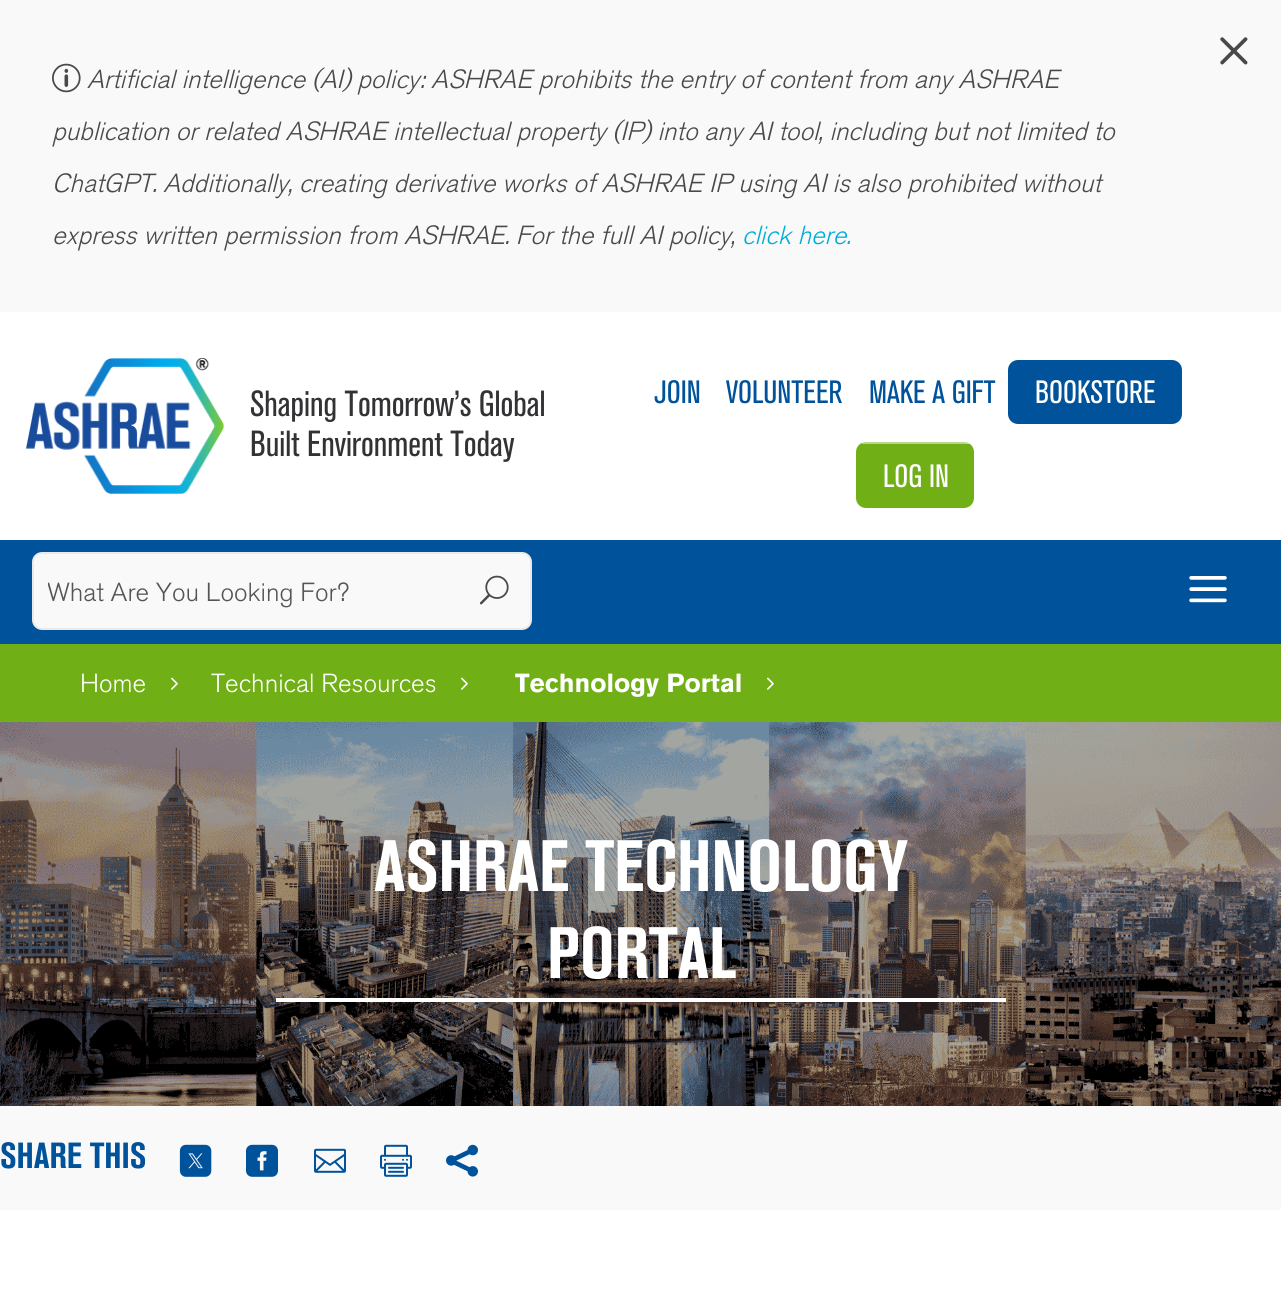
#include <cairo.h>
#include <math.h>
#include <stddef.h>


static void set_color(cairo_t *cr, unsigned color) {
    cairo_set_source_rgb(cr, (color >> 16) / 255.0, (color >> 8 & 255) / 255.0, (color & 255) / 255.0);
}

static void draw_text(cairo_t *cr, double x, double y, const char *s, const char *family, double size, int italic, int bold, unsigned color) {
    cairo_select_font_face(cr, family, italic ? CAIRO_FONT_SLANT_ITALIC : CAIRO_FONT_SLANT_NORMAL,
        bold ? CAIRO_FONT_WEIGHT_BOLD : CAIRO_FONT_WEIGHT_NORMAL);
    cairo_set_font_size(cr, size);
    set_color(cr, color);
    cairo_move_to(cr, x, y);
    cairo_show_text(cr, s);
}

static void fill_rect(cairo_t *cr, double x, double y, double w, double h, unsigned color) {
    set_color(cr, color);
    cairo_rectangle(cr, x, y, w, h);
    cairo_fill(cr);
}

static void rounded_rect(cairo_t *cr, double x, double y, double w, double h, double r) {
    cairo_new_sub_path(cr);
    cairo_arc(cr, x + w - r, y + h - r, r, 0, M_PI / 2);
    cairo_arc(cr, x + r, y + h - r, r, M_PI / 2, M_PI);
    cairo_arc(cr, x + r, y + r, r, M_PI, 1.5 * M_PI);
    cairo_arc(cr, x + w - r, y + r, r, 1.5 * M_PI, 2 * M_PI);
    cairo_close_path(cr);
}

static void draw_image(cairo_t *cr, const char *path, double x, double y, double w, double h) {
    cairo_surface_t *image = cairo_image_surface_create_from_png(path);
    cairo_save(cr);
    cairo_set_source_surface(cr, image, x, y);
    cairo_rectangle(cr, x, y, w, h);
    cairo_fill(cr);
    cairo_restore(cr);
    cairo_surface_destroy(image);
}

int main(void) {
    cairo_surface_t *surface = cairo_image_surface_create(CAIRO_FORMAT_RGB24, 1281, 1314);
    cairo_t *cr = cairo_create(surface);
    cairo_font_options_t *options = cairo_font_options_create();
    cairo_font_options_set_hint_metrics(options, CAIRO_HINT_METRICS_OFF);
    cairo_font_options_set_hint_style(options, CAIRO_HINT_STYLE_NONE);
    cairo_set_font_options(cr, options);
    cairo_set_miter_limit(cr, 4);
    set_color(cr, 0xFFFFFF);
    cairo_paint(cr);
    fill_rect(cr, 0, 0, 1281, 312, 0xF9F9F9);
    draw_image(cr, "assets/img1.png", 1220, 37, 28, 28);
    draw_image(cr, "assets/img2.png", 52, 63, 29, 30);
    draw_text(cr, 87, 88, "Artificial intelligence (AI) policy: ASHRAE prohibits the entry of content from any ASHRAE", "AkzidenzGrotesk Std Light", 26, 1, 0, 0x49494C);
    draw_text(cr, 52, 140, "publication or related ASHRAE intellectual property (IP) into any AI tool, including but not limited to", "AkzidenzGrotesk Std Light", 26, 1, 0, 0x49494C);
    draw_text(cr, 52, 192, "ChatGPT. Additionally, creating derivative works of ASHRAE IP using AI is also prohibited without", "AkzidenzGrotesk Std Light", 26, 1, 0, 0x49494C);
    draw_text(cr, 52, 244, "express written permission from ASHRAE. For the full AI policy,", "AkzidenzGrotesk Std Light", 26, 1, 0, 0x49494C);
    draw_text(cr, 742, 244, "click here.", "AkzidenzGrotesk Std Light", 26, 1, 0, 0x00AED8);
    draw_image(cr, "assets/img3.png", 26, 358, 198, 136);
    draw_text(cr, 250, 416, "Shaping Tomorrow’s Global", "AkzidenzGrotesk Std", 36, 0, 0, 0x333235);
    draw_text(cr, 250, 456, "Built Environment Today", "AkzidenzGrotesk Std", 36, 0, 0, 0x333235);
    draw_text(cr, 654, 403, "JOIN", "AkzidenzGrotesk Std", 32, 0, 0, 0x00529B);
    draw_text(cr, 726, 403, "VOLUNTEER", "AkzidenzGrotesk Std", 32, 0, 0, 0x00529B);
    draw_text(cr, 869, 403, "MAKE A GIFT", "AkzidenzGrotesk Std", 32, 0, 0, 0x00529B);
    rounded_rect(cr, 1008, 360, 174, 64, 10);
    cairo_fill(cr);
    draw_text(cr, 1035, 403, "BOOKSTORE", "AkzidenzGrotesk Std", 32, 0, 0, 0xFFFFFF);
    set_color(cr, 0x70AF16);
    rounded_rect(cr, 856, 442, 118, 66, 10);
    cairo_fill(cr);
    cairo_set_source_rgba(cr, 1, 1, 1, 0.5);
    cairo_rectangle(cr, 862, 442, 108, 2);
    cairo_fill(cr);
    draw_text(cr, 883, 487, "LOG IN", "AkzidenzGrotesk Std", 32, 0, 0, 0xFFFFFF);
    fill_rect(cr, 0, 540, 1281, 104, 0x00529B);
    set_color(cr, 0xF9F9F9);
    rounded_rect(cr, 33, 553, 498, 76, 9);
    cairo_fill_preserve(cr);
    set_color(cr, 0xEAEAEA);
    cairo_stroke(cr);
    cairo_save(cr);
    cairo_rectangle(cr, 48, 576, 470, 32);
    cairo_clip(cr);
    draw_text(cr, 47, 601, "What Are You Looking For?", "AkzidenzGrotesk Std Light", 26, 0, 0, 0x555458);
    cairo_restore(cr);
    draw_image(cr, "assets/img4.png", 479, 575, 30, 30);
    draw_image(cr, "assets/img5.png", 1189, 576, 38, 27);
    fill_rect(cr, 0, 644, 1281, 78, 0x70AF16);
    draw_text(cr, 80, 692, "Home", "AkzidenzGrotesk Std Light", 26, 0, 0, 0xFFFFFF);
    draw_image(cr, "assets/img6.png", 171, 677, 7, 13);
    draw_text(cr, 211, 692, "Technical Resources", "AkzidenzGrotesk Std Light", 26, 0, 0, 0xFFFFFF);
    draw_image(cr, "assets/img6.png", 461, 677, 7, 13);
    draw_text(cr, 515, 692, "Technology Portal", "AkzidenzGrotesk Std", 26, 0, 1, 0xFFFFFF);
    draw_image(cr, "assets/img6.png", 767, 677, 7, 13);
    draw_image(cr, "assets/img7.png", 0, 722, 1281, 384);
    fill_rect(cr, 276, 998, 730, 4, 0xFFFFFF);
    draw_text(cr, 374, 891, "ASHRAE TECHNOLOGY", "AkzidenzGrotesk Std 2", 72, 0, 1, 0xFFFFFF);
    draw_text(cr, 547, 978, "PORTAL", "AkzidenzGrotesk Std 2", 72, 0, 1, 0xFFFFFF);
    fill_rect(cr, 0, 1106, 1281, 104, 0xF9F9F9);
    draw_text(cr, 0, 1168, "SHARE THIS", "AkzidenzGrotesk Std 2", 36, 0, 1, 0x00529B);
    draw_image(cr, "assets/img8.png", 179, 1144, 33, 33);
    draw_image(cr, "assets/img9.png", 246, 1144, 32, 33);
    draw_image(cr, "assets/img10.png", 314, 1148, 32, 25);
    draw_image(cr, "assets/img11.png", 380, 1144, 32, 33);
    draw_image(cr, "assets/img12.png", 446, 1144, 32, 33);
    cairo_surface_write_to_png(surface, "output.png");
    cairo_font_options_destroy(options);
    cairo_destroy(cr);
    cairo_surface_destroy(surface);
    return 0;
}
